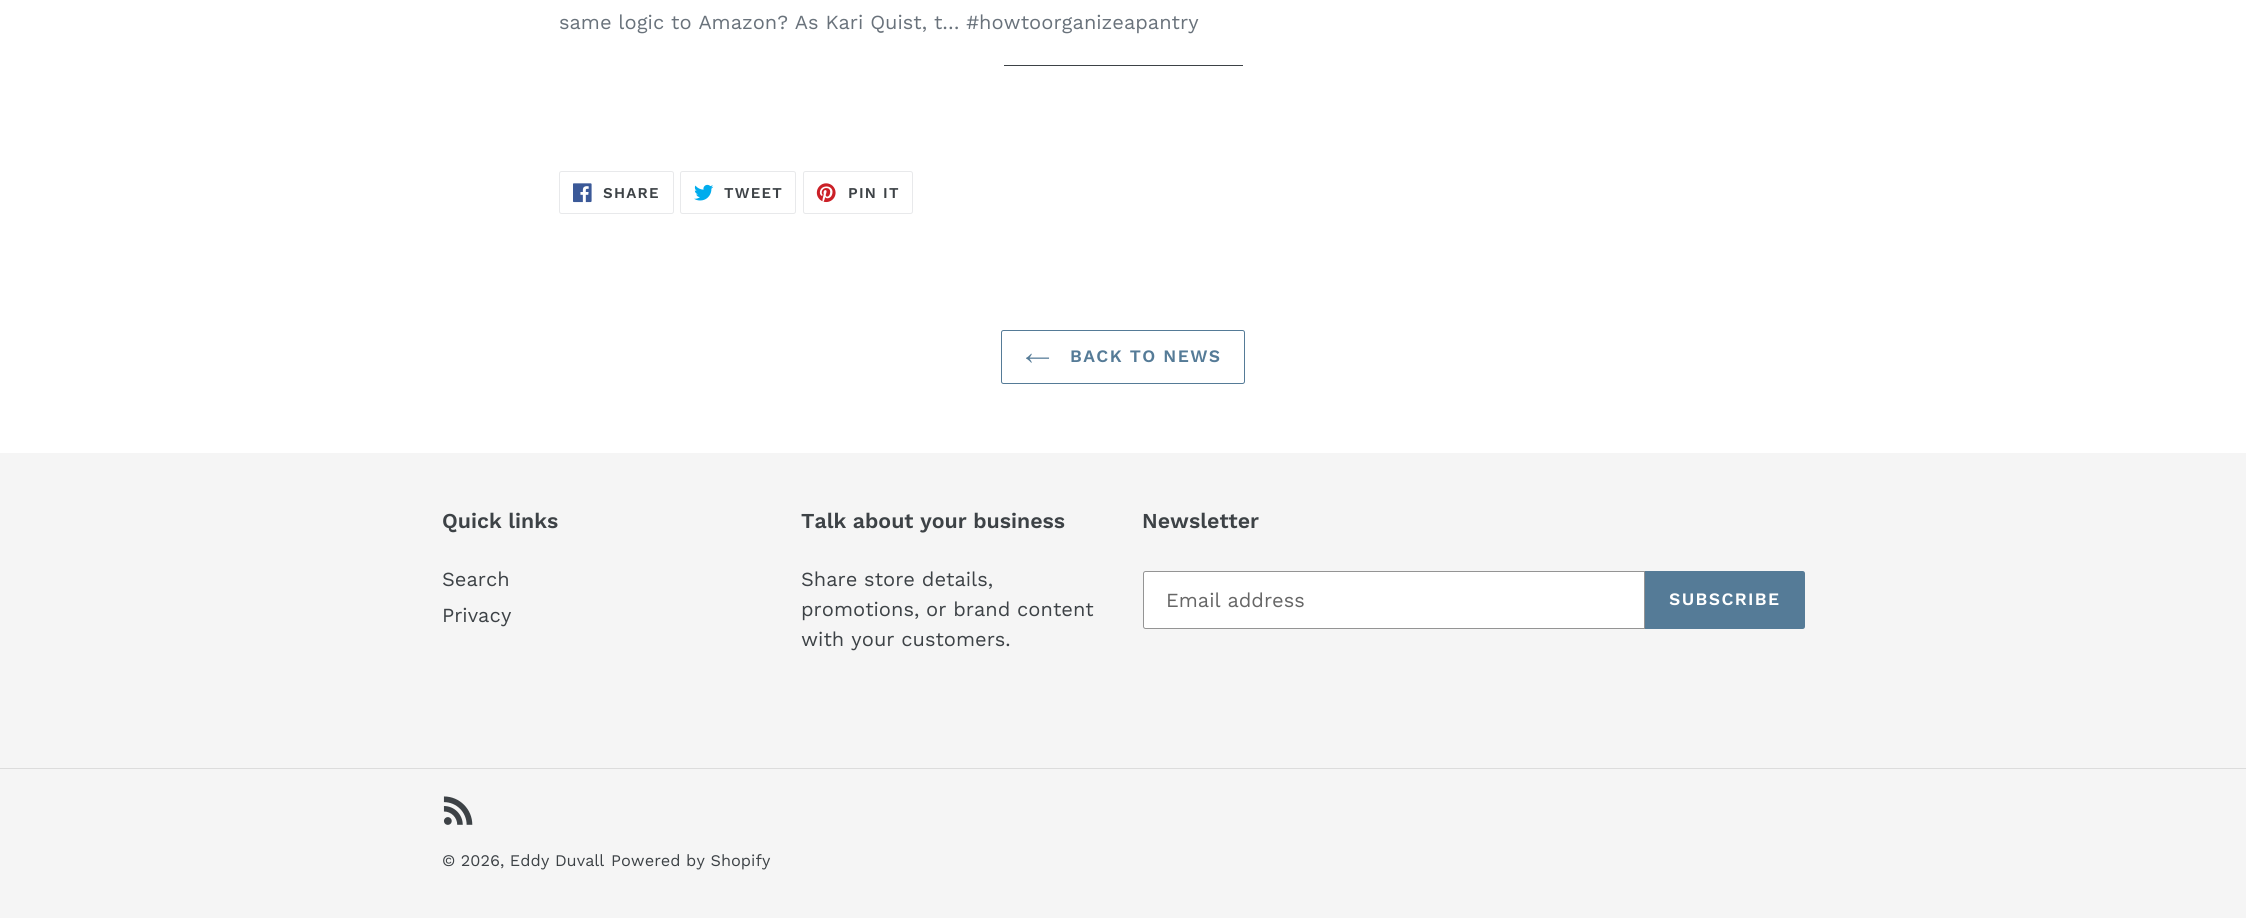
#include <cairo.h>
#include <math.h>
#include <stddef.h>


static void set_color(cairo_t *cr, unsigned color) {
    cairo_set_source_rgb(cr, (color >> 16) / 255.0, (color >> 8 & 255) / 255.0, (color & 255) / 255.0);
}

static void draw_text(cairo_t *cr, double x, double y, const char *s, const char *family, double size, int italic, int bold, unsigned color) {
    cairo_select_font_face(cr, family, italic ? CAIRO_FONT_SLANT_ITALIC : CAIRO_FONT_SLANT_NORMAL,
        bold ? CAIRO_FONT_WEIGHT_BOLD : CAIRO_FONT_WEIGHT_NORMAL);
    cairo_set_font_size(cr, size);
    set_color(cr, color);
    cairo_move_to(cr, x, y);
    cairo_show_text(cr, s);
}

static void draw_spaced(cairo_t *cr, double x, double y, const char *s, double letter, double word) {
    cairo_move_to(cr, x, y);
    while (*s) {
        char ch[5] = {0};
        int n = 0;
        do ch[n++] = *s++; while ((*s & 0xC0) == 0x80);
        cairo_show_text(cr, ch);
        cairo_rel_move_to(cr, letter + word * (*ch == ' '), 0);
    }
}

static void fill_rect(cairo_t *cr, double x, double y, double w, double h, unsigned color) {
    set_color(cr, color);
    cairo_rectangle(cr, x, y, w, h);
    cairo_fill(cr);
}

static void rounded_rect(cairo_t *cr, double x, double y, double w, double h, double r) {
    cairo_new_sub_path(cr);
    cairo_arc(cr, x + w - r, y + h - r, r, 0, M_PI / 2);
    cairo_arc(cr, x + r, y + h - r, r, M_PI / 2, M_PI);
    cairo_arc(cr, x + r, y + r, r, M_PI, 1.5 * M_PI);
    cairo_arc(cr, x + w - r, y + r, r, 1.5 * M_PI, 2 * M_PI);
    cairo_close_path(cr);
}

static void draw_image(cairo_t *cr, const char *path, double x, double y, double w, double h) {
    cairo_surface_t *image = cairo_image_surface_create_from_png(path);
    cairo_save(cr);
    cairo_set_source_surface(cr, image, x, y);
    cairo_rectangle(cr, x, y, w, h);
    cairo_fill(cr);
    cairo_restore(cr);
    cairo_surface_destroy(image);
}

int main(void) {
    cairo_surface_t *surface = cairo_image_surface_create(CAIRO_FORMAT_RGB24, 2246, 918);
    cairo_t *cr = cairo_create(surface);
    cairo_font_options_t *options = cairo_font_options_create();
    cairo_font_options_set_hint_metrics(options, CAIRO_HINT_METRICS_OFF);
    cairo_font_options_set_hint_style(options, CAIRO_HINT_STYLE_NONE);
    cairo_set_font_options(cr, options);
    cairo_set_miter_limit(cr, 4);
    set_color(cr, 0xFFFFFF);
    cairo_paint(cr);
    draw_text(cr, 559, 29, "same logic to Amazon? As Kari Quist, t… #howtoorganizeapantry", "Work Sans", 20, 0, 0, 0x69727B);
    fill_rect(cr, 1004, 65, 239, 1, 0x3D4246);
    rounded_rect(cr, 559.5, 171.5, 114, 42, 2);
    set_color(cr, 0xE8E9EB);
    cairo_set_line_width(cr, 1);
    cairo_stroke(cr);
    draw_image(cr, "assets/img1.png", 573, 183, 19, 20);
    cairo_select_font_face(cr, "Work Sans SemiBold", CAIRO_FONT_SLANT_NORMAL, CAIRO_FONT_WEIGHT_NORMAL);
    cairo_set_font_size(cr, 15);
    set_color(cr, 0x3D4246);
    draw_spaced(cr, 603, 198, "SHARE", 1.25, 0);
    rounded_rect(cr, 680.5, 171.5, 115, 42, 2);
    set_color(cr, 0xE8E9EB);
    cairo_stroke(cr);
    draw_image(cr, "assets/img2.png", 694, 184, 20, 17);
    set_color(cr, 0x3D4246);
    draw_spaced(cr, 724, 198, "TWEET", 1.25, 0);
    rounded_rect(cr, 803.5, 171.5, 109, 42, 2);
    set_color(cr, 0xE8E9EB);
    cairo_stroke(cr);
    draw_image(cr, "assets/img3.png", 816, 183, 20, 20);
    set_color(cr, 0x3D4246);
    draw_spaced(cr, 848, 198, "PIN IT", 1.25, 0);
    rounded_rect(cr, 1001.5, 330.5, 243, 53, 2);
    set_color(cr, 0x557B97);
    cairo_stroke(cr);
    draw_image(cr, "assets/img4.png", 1026, 353, 24, 10);
    cairo_set_font_size(cr, 17.5);
    draw_spaced(cr, 1070, 362, "BACK TO NEWS", 1.4, 0);
    fill_rect(cr, 0, 453, 2246, 465, 0xF5F5F5);
    draw_text(cr, 442, 528, "Quick links", "Work Sans SemiBold", 21.25, 0, 0, 0x3D4246);
    draw_text(cr, 442, 586, "Search", "Work Sans", 20, 0, 0, 0x3D4246);
    draw_text(cr, 442, 622, "Privacy", "Work Sans", 20, 0, 0, 0x3D4246);
    draw_text(cr, 801, 528, "Talk about your business", "Work Sans SemiBold", 21.25, 0, 0, 0x3D4246);
    draw_text(cr, 801, 586, "Share store details,", "Work Sans", 20, 0, 0, 0x3D4246);
    draw_text(cr, 801, 616, "promotions, or brand content", "Work Sans", 20, 0, 0, 0x3D4246);
    draw_text(cr, 801, 646, "with your customers.", "Work Sans", 20, 0, 0, 0x3D4246);
    draw_text(cr, 1142, 528, "Newsletter", "Work Sans SemiBold", 21.25, 0, 0, 0x3D4246);
    set_color(cr, 0xFFFFFF);
    cairo_new_path(cr);
    cairo_move_to(cr, 1145.5, 571.5);
    cairo_line_to(cr, 1644.5, 571.5);
    cairo_line_to(cr, 1644.5, 628.5);
    cairo_line_to(cr, 1145.5, 628.5);
    cairo_curve_to(cr, 1144.5, 628.5, 1143.5, 627.5, 1143.5, 626.5);
    cairo_line_to(cr, 1143.5, 573.5);
    cairo_curve_to(cr, 1143.5, 572.5, 1144.5, 571.5, 1145.5, 571.5);
    cairo_close_path(cr);
    cairo_fill_preserve(cr);
    set_color(cr, 0x949494);
    cairo_stroke(cr);
    draw_text(cr, 1166, 607, "Email address", "Work Sans", 20, 0, 0, 0x666666);
    set_color(cr, 0x557B97);
    cairo_new_path(cr);
    cairo_move_to(cr, 1645, 571);
    cairo_line_to(cr, 1802.5, 571);
    cairo_curve_to(cr, 1804, 571, 1805, 572, 1805, 573.5);
    cairo_line_to(cr, 1805, 626.5);
    cairo_curve_to(cr, 1805, 628, 1804, 629, 1802.5, 629);
    cairo_line_to(cr, 1645, 629);
    cairo_close_path(cr);
    cairo_fill(cr);
    cairo_select_font_face(cr, "Work Sans SemiBold", CAIRO_FONT_SLANT_NORMAL, CAIRO_FONT_WEIGHT_NORMAL);
    cairo_set_font_size(cr, 17.5);
    set_color(cr, 0xFFFFFF);
    draw_spaced(cr, 1669, 605, "SUBSCRIBE", 1.4, 0);
    fill_rect(cr, 0, 768, 2246, 1, 0xDCDCDC);
    draw_image(cr, "assets/img5.png", 443, 796, 30, 29);
    draw_text(cr, 442, 866, "© 2026, Eddy Duvall", "Work Sans", 16.25, 0, 0, 0x3D4246);
    draw_text(cr, 611, 866, "Powered by Shopify", "Work Sans", 16.25, 0, 0, 0x3D4246);
    cairo_surface_write_to_png(surface, "output.png");
    cairo_font_options_destroy(options);
    cairo_destroy(cr);
    cairo_surface_destroy(surface);
    return 0;
}
